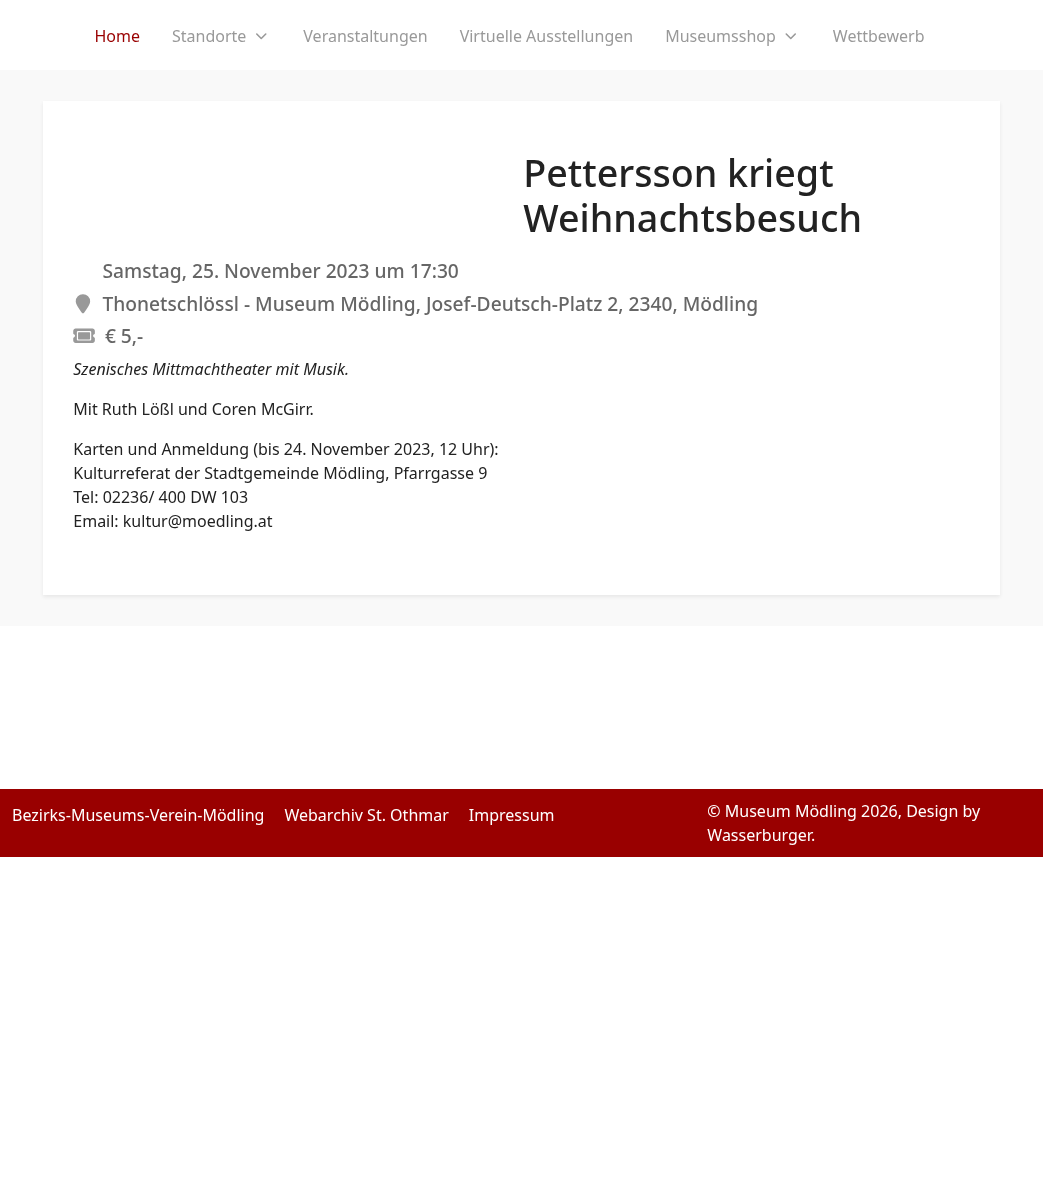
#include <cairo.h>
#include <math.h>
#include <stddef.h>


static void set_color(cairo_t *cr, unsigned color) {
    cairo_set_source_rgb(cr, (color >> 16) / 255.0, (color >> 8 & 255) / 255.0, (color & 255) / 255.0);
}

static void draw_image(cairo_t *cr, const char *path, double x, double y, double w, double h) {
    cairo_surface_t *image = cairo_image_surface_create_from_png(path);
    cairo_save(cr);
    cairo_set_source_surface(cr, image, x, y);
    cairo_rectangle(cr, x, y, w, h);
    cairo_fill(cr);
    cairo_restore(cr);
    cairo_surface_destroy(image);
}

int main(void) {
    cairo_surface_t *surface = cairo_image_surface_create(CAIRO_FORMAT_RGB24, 1043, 1195);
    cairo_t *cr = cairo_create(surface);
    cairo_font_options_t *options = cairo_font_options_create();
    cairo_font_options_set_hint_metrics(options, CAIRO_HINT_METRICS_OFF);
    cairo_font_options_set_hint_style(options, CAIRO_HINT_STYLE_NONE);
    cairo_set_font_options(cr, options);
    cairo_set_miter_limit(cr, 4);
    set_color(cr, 0xFFFFFF);
    cairo_paint(cr);
    draw_image(cr, "assets/img1.png", 0, 30, 1043, 827);
    cairo_surface_write_to_png(surface, "output.png");
    cairo_font_options_destroy(options);
    cairo_destroy(cr);
    cairo_surface_destroy(surface);
    return 0;
}
